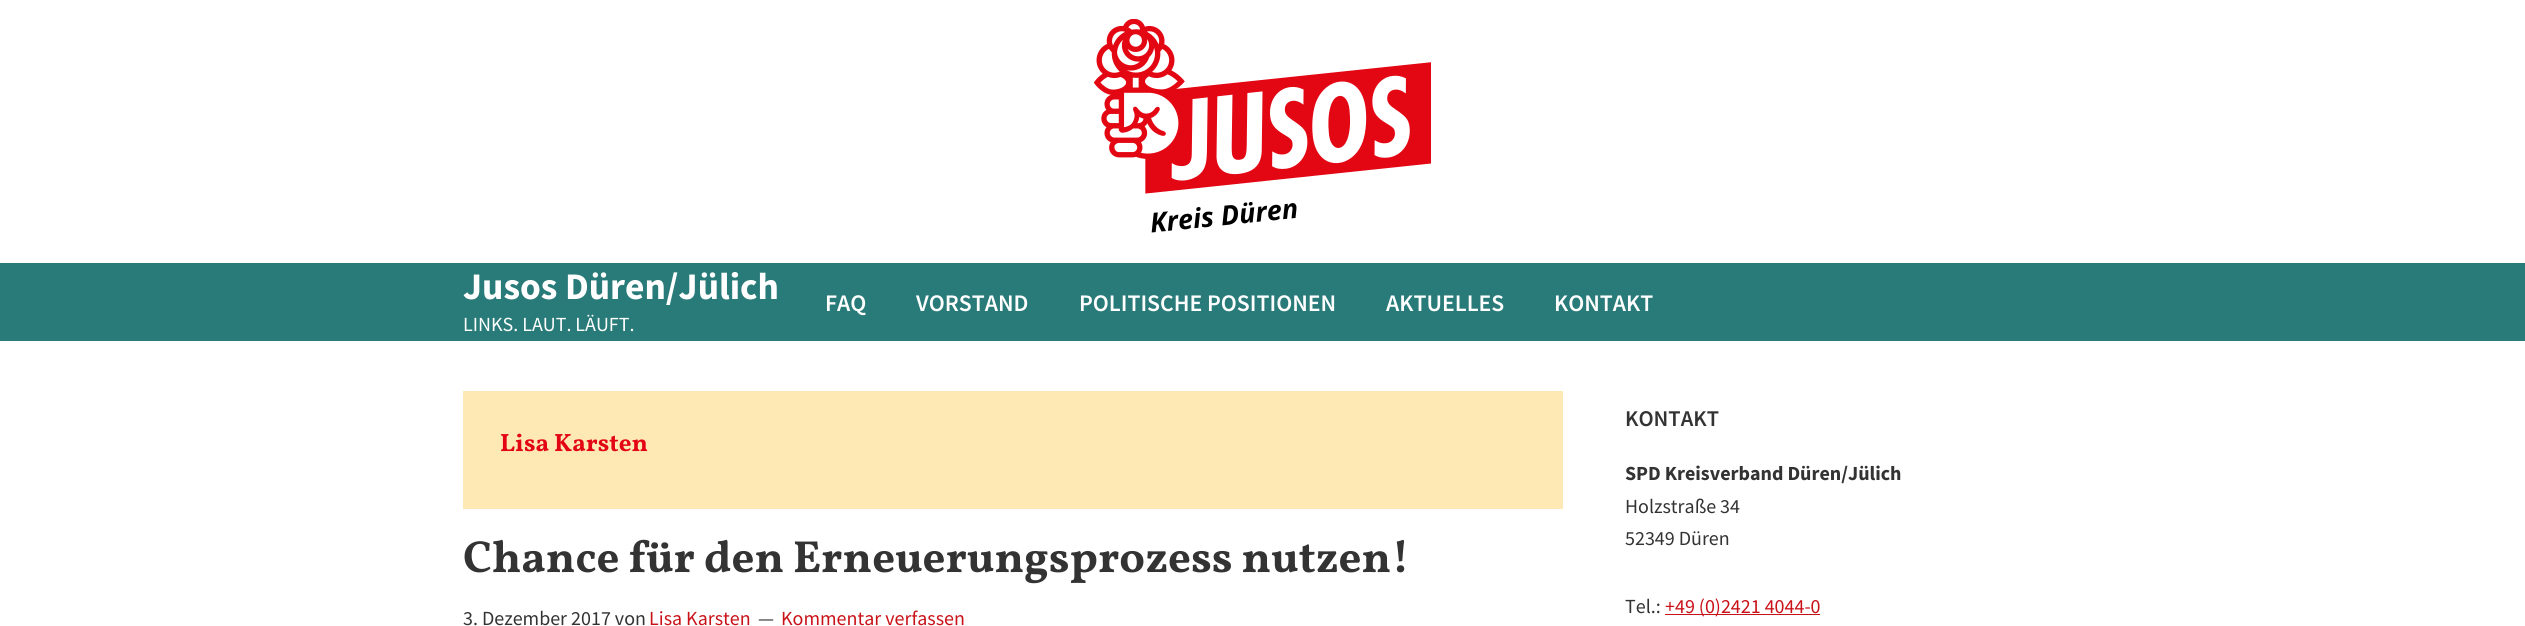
#include <cairo.h>
#include <math.h>
#include <stddef.h>


static void set_color(cairo_t *cr, unsigned color) {
    cairo_set_source_rgb(cr, (color >> 16) / 255.0, (color >> 8 & 255) / 255.0, (color & 255) / 255.0);
}

static void draw_text(cairo_t *cr, double x, double y, const char *s, const char *family, double size, int italic, int bold, unsigned color) {
    cairo_select_font_face(cr, family, italic ? CAIRO_FONT_SLANT_ITALIC : CAIRO_FONT_SLANT_NORMAL,
        bold ? CAIRO_FONT_WEIGHT_BOLD : CAIRO_FONT_WEIGHT_NORMAL);
    cairo_set_font_size(cr, size);
    set_color(cr, color);
    cairo_move_to(cr, x, y);
    cairo_show_text(cr, s);
}

static void fill_rect(cairo_t *cr, double x, double y, double w, double h, unsigned color) {
    set_color(cr, color);
    cairo_rectangle(cr, x, y, w, h);
    cairo_fill(cr);
}

static void draw_image(cairo_t *cr, const char *path, double x, double y, double w, double h) {
    cairo_surface_t *image = cairo_image_surface_create_from_png(path);
    cairo_save(cr);
    cairo_set_source_surface(cr, image, x, y);
    cairo_rectangle(cr, x, y, w, h);
    cairo_fill(cr);
    cairo_restore(cr);
    cairo_surface_destroy(image);
}

int main(void) {
    cairo_surface_t *surface = cairo_image_surface_create(CAIRO_FORMAT_RGB24, 2525, 626);
    cairo_t *cr = cairo_create(surface);
    cairo_font_options_t *options = cairo_font_options_create();
    cairo_font_options_set_hint_metrics(options, CAIRO_HINT_METRICS_OFF);
    cairo_font_options_set_hint_style(options, CAIRO_HINT_STYLE_NONE);
    cairo_set_font_options(cr, options);
    cairo_set_miter_limit(cr, 4);
    set_color(cr, 0xFFFFFF);
    cairo_paint(cr);
    draw_image(cr, "assets/img1.png", 1094, 19, 337, 214);
    fill_rect(cr, 0, 263, 2525, 78, 0x297B79);
    draw_text(cr, 463, 299, "Jusos Düren/Jülich", "Source Sans Pro", 37.5, 0, 1, 0xFFFFFF);
    draw_text(cr, 463, 331, "LINKS. LAUT. LÄUFT.", "Source Sans Pro", 20, 0, 0, 0xFFFFFF);
    draw_text(cr, 825, 311, "FAQ", "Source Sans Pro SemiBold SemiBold", 23.75, 0, 0, 0xFFFFFF);
    draw_text(cr, 916, 311, "VORSTAND", "Source Sans Pro SemiBold SemiBold", 23.75, 0, 0, 0xFFFFFF);
    draw_text(cr, 1079, 311, "POLITISCHE POSITIONEN", "Source Sans Pro SemiBold SemiBold", 23.75, 0, 0, 0xFFFFFF);
    draw_text(cr, 1386, 311, "AKTUELLES", "Source Sans Pro SemiBold SemiBold", 23.75, 0, 0, 0xFFFFFF);
    draw_text(cr, 1554, 311, "KONTAKT", "Source Sans Pro SemiBold SemiBold", 23.75, 0, 0, 0xFFFFFF);
    fill_rect(cr, 463, 391, 1100, 118, 0xFEE8B3);
    draw_text(cr, 500, 451, "Lisa Karsten", "Vollkorn", 25, 0, 1, 0xE30513);
    draw_text(cr, 463, 572, "Chance für den Erneuerungsprozess nutzen!", "Vollkorn", 45, 0, 1, 0x333333);
    draw_text(cr, 463, 625, "3. Dezember 2017 von", "Source Sans Pro", 20, 0, 0, 0x333333);
    draw_text(cr, 649, 625, "Lisa Karsten", "Source Sans Pro", 20, 0, 0, 0xC91218);
    draw_text(cr, 758, 625, "—", "Source Sans Pro", 20, 0, 0, 0x333333);
    draw_text(cr, 781, 625, "Kommentar verfassen", "Source Sans Pro", 20, 0, 0, 0xC91218);
    draw_text(cr, 1625, 426, "KONTAKT", "Source Sans Pro SemiBold SemiBold", 22.5, 0, 0, 0x333333);
    draw_text(cr, 1625, 480, "SPD Kreisverband Düren/Jülich", "Source Sans Pro", 20, 0, 1, 0x333333);
    draw_text(cr, 1625, 513, "Holzstraße 34", "Source Sans Pro", 20, 0, 0, 0x333333);
    draw_text(cr, 1625, 545, "52349 Düren", "Source Sans Pro", 20, 0, 0, 0x333333);
    draw_text(cr, 1625, 613, "Tel.:", "Source Sans Pro", 20, 0, 0, 0x333333);
    fill_rect(cr, 1665, 614, 155, 1, 0xC91218);
    draw_text(cr, 1665, 613, "+49 (0)2421 4044-0", "Source Sans Pro", 20, 0, 0, 0xC91218);
    cairo_surface_write_to_png(surface, "output.png");
    cairo_font_options_destroy(options);
    cairo_destroy(cr);
    cairo_surface_destroy(surface);
    return 0;
}
